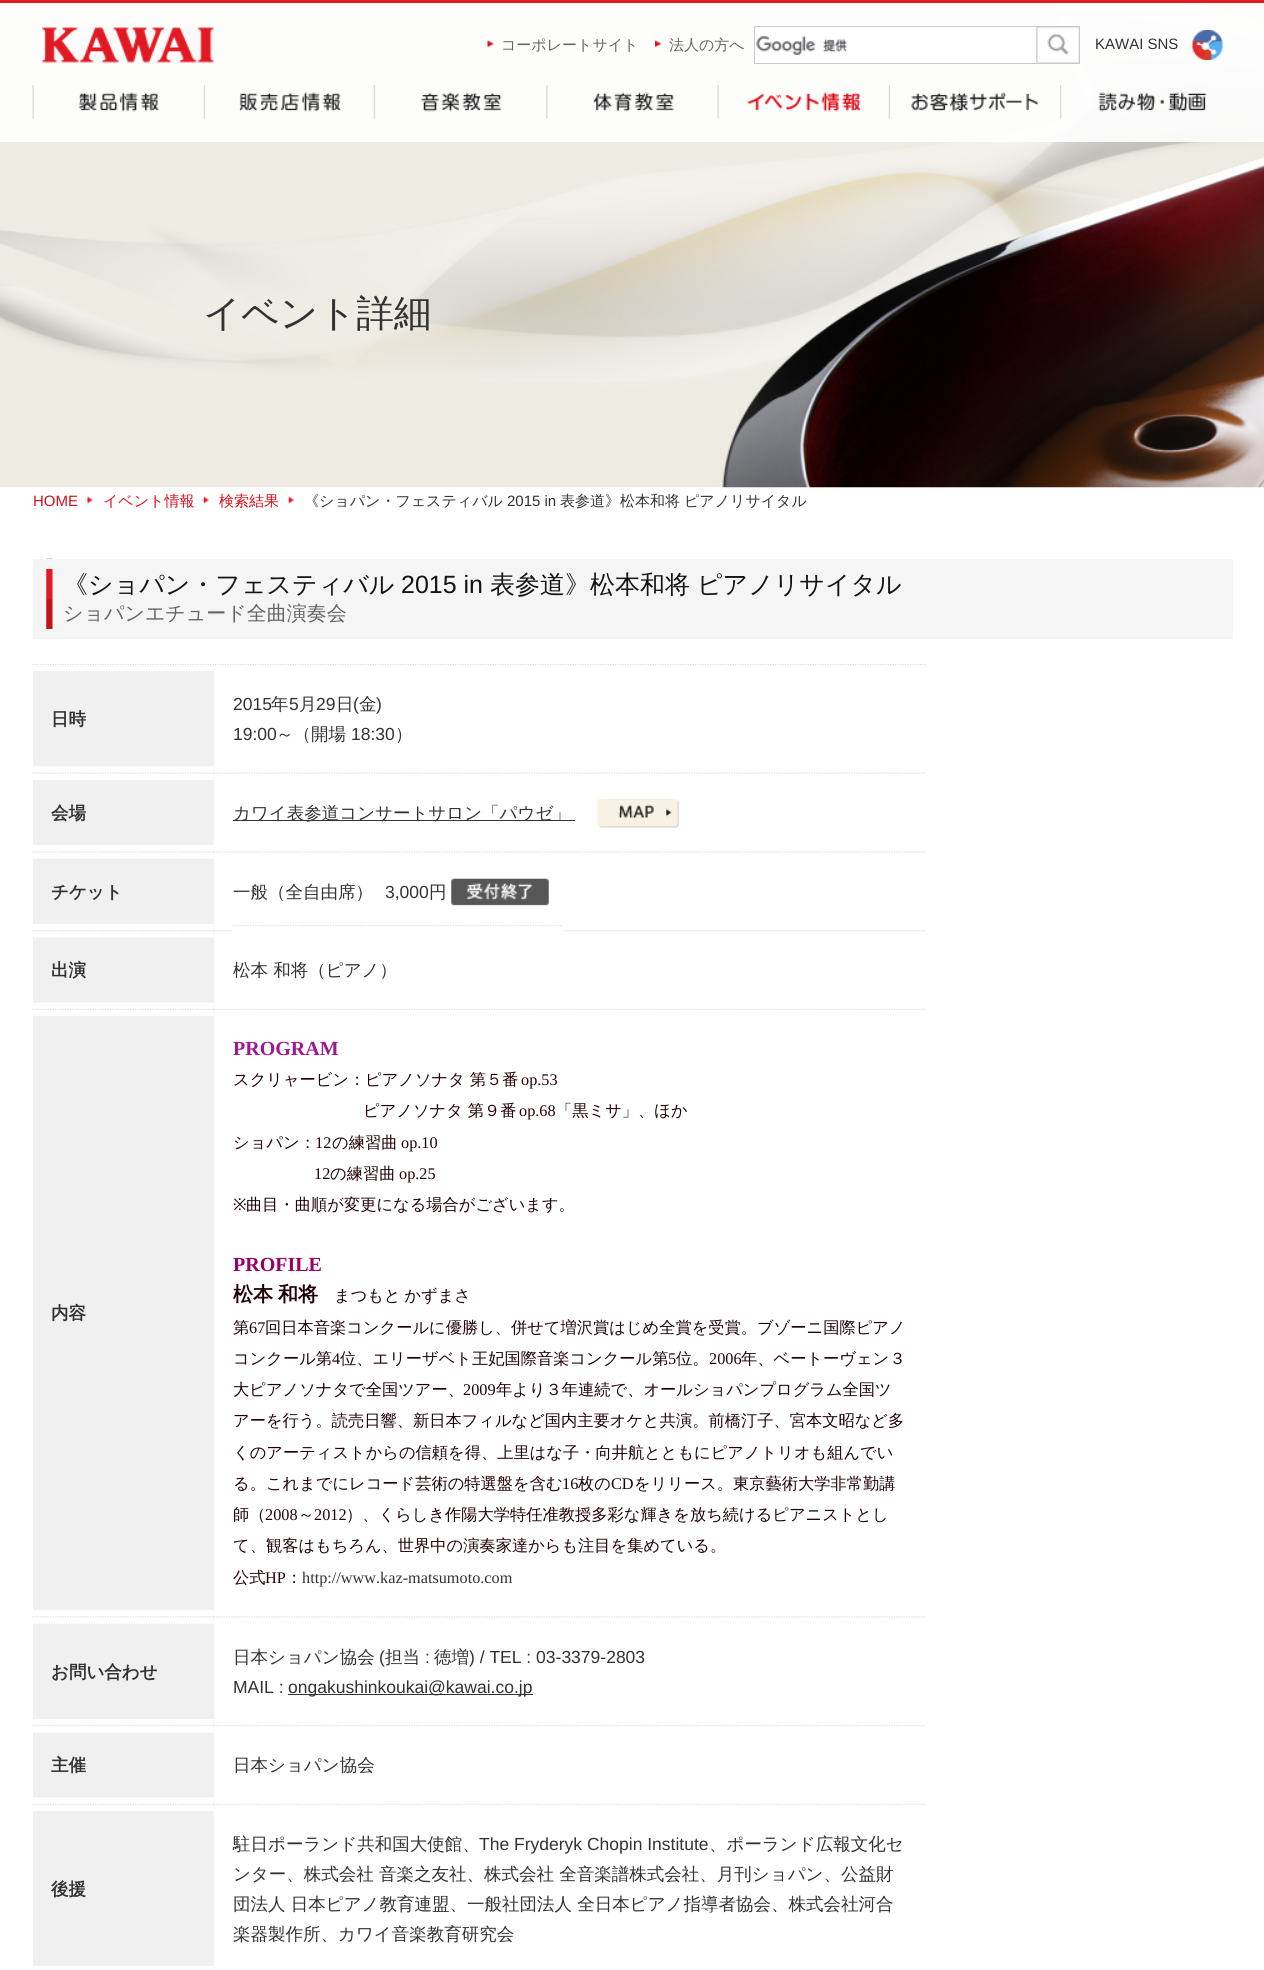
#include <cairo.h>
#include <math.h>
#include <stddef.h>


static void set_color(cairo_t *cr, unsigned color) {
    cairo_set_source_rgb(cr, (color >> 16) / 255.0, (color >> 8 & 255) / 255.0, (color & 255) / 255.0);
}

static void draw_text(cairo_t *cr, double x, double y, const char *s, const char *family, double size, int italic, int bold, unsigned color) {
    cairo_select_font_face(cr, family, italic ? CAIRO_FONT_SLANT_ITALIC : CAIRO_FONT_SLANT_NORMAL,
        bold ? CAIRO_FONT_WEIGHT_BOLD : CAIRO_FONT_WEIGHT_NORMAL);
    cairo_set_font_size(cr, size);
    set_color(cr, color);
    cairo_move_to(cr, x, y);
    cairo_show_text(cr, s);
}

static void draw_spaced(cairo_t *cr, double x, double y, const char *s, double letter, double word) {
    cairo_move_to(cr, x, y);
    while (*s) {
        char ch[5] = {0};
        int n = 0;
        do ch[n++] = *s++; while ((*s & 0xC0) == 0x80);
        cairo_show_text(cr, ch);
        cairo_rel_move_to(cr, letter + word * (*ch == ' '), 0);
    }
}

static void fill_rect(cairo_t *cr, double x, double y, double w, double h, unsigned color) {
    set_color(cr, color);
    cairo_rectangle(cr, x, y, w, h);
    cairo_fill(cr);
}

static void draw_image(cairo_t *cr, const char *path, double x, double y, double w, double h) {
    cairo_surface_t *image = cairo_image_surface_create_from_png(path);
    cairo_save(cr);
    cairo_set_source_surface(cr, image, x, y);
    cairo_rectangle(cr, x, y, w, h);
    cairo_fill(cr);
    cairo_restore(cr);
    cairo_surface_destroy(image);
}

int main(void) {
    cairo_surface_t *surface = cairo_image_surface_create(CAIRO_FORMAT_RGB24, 1264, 1970);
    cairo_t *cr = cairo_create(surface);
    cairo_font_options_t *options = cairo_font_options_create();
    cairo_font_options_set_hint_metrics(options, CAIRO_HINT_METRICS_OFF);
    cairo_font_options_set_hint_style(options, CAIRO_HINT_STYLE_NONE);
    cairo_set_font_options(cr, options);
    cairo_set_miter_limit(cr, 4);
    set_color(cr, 0xFFFFFF);
    cairo_paint(cr);
    draw_image(cr, "assets/img14.png", 0, 3, 1264, 485);
    cairo_set_source_rgba(cr, 1, 1, 1, 0.9);
    cairo_rectangle(cr, 0, 3, 1264, 139);
    cairo_fill(cr);
    fill_rect(cr, 0, 0, 1264, 3, 0xE11922);
    draw_image(cr, "assets/img1.png", 42, 27, 172, 36);
    fill_rect(cr, 755, 27, 282, 36, 0xFFFFFF);
    cairo_rectangle(cr, 754.5, 26.5, 325, 37);
    set_color(cr, 0xC9C9C9);
    cairo_set_line_width(cr, 1);
    cairo_stroke(cr);
    draw_image(cr, "assets/img2.png", 756, 36, 91, 19);
    draw_image(cr, "assets/img3.png", 1036, 27, 43, 36);
    draw_image(cr, "assets/img4.png", 487, 40, 7, 8);
    draw_text(cr, 501, 50, "コーポレートサイト", "WenQuanYi Zen Hei Medium", 15, 0, 0, 0x646464);
    draw_image(cr, "assets/img5.png", 655, 40, 7, 8);
    draw_text(cr, 669, 50, "法人の方へ", "WenQuanYi Zen Hei Medium", 15, 0, 0, 0x646464);
    draw_image(cr, "assets/img6.png", 1192, 30, 31, 30);
    draw_text(cr, 1095, 49, "KAWAI SNS", "Liberation Sans", 15, 0, 0, 0x323232);
    draw_image(cr, "assets/img7.png", 32, 85, 127, 34);
    draw_image(cr, "assets/img8.png", 203, 85, 138, 34);
    draw_image(cr, "assets/img9.png", 373, 85, 129, 34);
    draw_image(cr, "assets/img10.png", 546, 85, 128, 34);
    draw_image(cr, "assets/img11.png", 717, 85, 144, 34);
    draw_image(cr, "assets/img12.png", 888, 85, 174, 34);
    draw_image(cr, "assets/img13.png", 1098, 92, 109, 20);
    draw_text(cr, 203, 326, "イベント詳細", "WenQuanYi Zen Hei Medium", 37.5, 0, 0, 0x323232);
    draw_text(cr, 33, 506, "HOME", "Liberation Sans", 15, 0, 0, 0xD60E17);
    draw_image(cr, "assets/img15.png", 87, 496, 6, 8);
    draw_text(cr, 103, 506, "イベント情報", "WenQuanYi Zen Hei Medium", 15, 0, 0, 0xD60E17);
    draw_image(cr, "assets/img16.png", 203, 496, 6, 8);
    draw_text(cr, 219, 506, "検索結果", "WenQuanYi Zen Hei Medium", 15, 0, 0, 0xD60E17);
    draw_image(cr, "assets/img17.png", 288, 496, 6, 8);
    draw_text(cr, 304, 506, "《ショパン・フェスティバル", "WenQuanYi Zen Hei Medium", 15, 0, 0, 0x323232);
    draw_text(cr, 507, 506, "2015 in", "Liberation Sans", 15, 0, 0, 0x323232);
    draw_text(cr, 560, 506, "表参道》松本和将", "WenQuanYi Zen Hei Medium", 15, 0, 0, 0x323232);
    draw_text(cr, 684, 506, "ピアノリサイタル", "WenQuanYi Zen Hei Medium", 15, 0, 0, 0x323232);
    fill_rect(cr, 33, 569, 1200, 70, 0xF5F5F5);
    draw_image(cr, "assets/img18.png", 46, 558, 7, 71);
    fill_rect(cr, 33, 559, 1200, 10, 0xF5F5F5);
    draw_text(cr, 63, 593, "《ショパン・フェスティバル", "WenQuanYi Zen Hei Medium", 25, 0, 0, 0x141414);
    draw_text(cr, 401, 593, "2015 in", "Liberation Sans", 25, 0, 0, 0x141414);
    draw_text(cr, 490, 593, "表参道》松本和将", "WenQuanYi Zen Hei Medium", 25, 0, 0, 0x141414);
    draw_text(cr, 697, 593, "ピアノリサイタル", "WenQuanYi Zen Hei Medium", 25, 0, 0, 0x141414);
    draw_text(cr, 63, 620, "ショパンエチュード全曲演奏会", "WenQuanYi Zen Hei Medium", 20, 0, 0, 0x646464);
    cairo_new_path(cr);
    cairo_move_to(cr, 32.5, 664.5);
    cairo_line_to(cr, 926, 664.5);
    set_color(cr, 0xDDDDDD);
    cairo_set_line_width(cr, 1.2);
    cairo_set_dash(cr, (double[]){1.25, 1.25}, 2, 0);
    cairo_stroke(cr);
    fill_rect(cr, 33, 671, 181, 1295, 0xF0F0F0);
    draw_image(cr, "assets/img19.png", 32, 766, 182, 14);
    draw_text(cr, 51, 725, "日時", "WenQuanYi Zen Hei", 17.5, 0, 1, 0x323232);
    draw_image(cr, "assets/img20.png", 214, 772, 711, 2);
    draw_text(cr, 233, 710, "2015", "Liberation Sans", 17.5, 0, 0, 0x323232);
    draw_text(cr, 271, 710, "年", "WenQuanYi Zen Hei Medium", 17.5, 0, 0, 0x323232);
    draw_text(cr, 289, 710, "5", "Liberation Sans", 17.5, 0, 0, 0x323232);
    draw_text(cr, 299, 710, "月", "WenQuanYi Zen Hei Medium", 17.5, 0, 0, 0x323232);
    draw_text(cr, 316, 710, "29", "Liberation Sans", 17.5, 0, 0, 0x323232);
    draw_text(cr, 336, 710, "日", "WenQuanYi Zen Hei Medium", 17.5, 0, 0, 0x323232);
    draw_text(cr, 353, 710, "(", "Liberation Sans", 17.5, 0, 0, 0x323232);
    draw_text(cr, 359, 710, "金", "WenQuanYi Zen Hei Medium", 17.5, 0, 0, 0x323232);
    draw_text(cr, 376, 710, ")", "Liberation Sans", 17.5, 0, 0, 0x323232);
    draw_text(cr, 233, 740, "19:00", "Liberation Sans", 17.5, 0, 0, 0x323232);
    draw_text(cr, 276, 740, "～（開場", "WenQuanYi Zen Hei Medium", 17.5, 0, 0, 0x323232);
    draw_text(cr, 351, 740, "18:30", "Liberation Sans", 17.5, 0, 0, 0x323232);
    draw_text(cr, 395, 740, "）", "WenQuanYi Zen Hei Medium", 17.5, 0, 0, 0x323232);
    draw_image(cr, "assets/img21.png", 32, 845, 182, 14);
    draw_text(cr, 51, 819, "会場", "WenQuanYi Zen Hei", 17.5, 0, 1, 0x323232);
    draw_image(cr, "assets/img22.png", 214, 851, 711, 2);
    fill_rect(cr, 233, 820, 342, 1, 0x323232);
    draw_text(cr, 233, 819, "カワイ表参道コンサートサロン「パウゼ」", "WenQuanYi Zen Hei Medium", 17.5, 0, 0, 0x323232);
    draw_image(cr, "assets/img23.png", 597, 798, 82, 30);
    draw_image(cr, "assets/img24.png", 32, 924, 182, 14);
    draw_text(cr, 51, 898, "チケット", "WenQuanYi Zen Hei", 17.5, 0, 1, 0x323232);
    draw_image(cr, "assets/img25.png", 214, 930, 711, 2);
    draw_image(cr, "assets/img26.png", 232, 925, 331, 7);
    draw_text(cr, 233, 898, "一般（全自由席）", "WenQuanYi Zen Hei Medium", 17.5, 0, 0, 0x323232);
    draw_text(cr, 385, 898, "3,000", "Liberation Sans", 17.5, 0, 0, 0x323232);
    draw_text(cr, 429, 898, "円", "WenQuanYi Zen Hei Medium", 17.5, 0, 0, 0x323232);
    draw_image(cr, "assets/img27.png", 451, 878, 98, 28);
    draw_image(cr, "assets/img28.png", 32, 1002, 182, 14);
    draw_text(cr, 51, 976, "出演", "WenQuanYi Zen Hei", 17.5, 0, 1, 0x323232);
    draw_image(cr, "assets/img29.png", 214, 1008, 711, 2);
    draw_text(cr, 233, 976, "松本 和将（ピアノ）", "WenQuanYi Zen Hei Medium", 17.5, 0, 0, 0x323232);
    draw_image(cr, "assets/img21.png", 32, 1610, 182, 14);
    draw_text(cr, 51, 1319, "内容", "WenQuanYi Zen Hei", 17.5, 0, 1, 0x323232);
    draw_image(cr, "assets/img22.png", 214, 1616, 711, 2);
    draw_text(cr, 233, 1055, "PROGRAM", "Liberation Serif", 20, 0, 1, 0x9E1991);
    draw_text(cr, 233, 1085, "スクリャービン：", "WenQuanYi Zen Hei Medium", 16.25, 0, 0, 0x210106);
    draw_text(cr, 365, 1085, "ピアノソナタ 第５番", "WenQuanYi Zen Hei Medium", 16.25, 0, 0, 0x210106);
    draw_text(cr, 521, 1085, "op.53", "Liberation Serif", 16.25, 0, 0, 0x210106);
    draw_text(cr, 363, 1116, "ピアノソナタ 第９番", "WenQuanYi Zen Hei Medium", 16.25, 0, 0, 0x210106);
    draw_text(cr, 519, 1116, "op.68", "Liberation Serif", 16.25, 0, 0, 0x210106);
    draw_text(cr, 556, 1116, "「黒ミサ」、ほか", "WenQuanYi Zen Hei Medium", 16.25, 0, 0, 0x210106);
    draw_text(cr, 233, 1148, "ショパン：", "WenQuanYi Zen Hei Medium", 16.25, 0, 0, 0x210106);
    draw_text(cr, 315, 1148, "12", "Liberation Serif", 16.25, 0, 0, 0x210106);
    draw_text(cr, 332, 1148, "の練習曲", "WenQuanYi Zen Hei Medium", 16.25, 0, 0, 0x210106);
    draw_text(cr, 401, 1148, "op.10", "Liberation Serif", 16.25, 0, 0, 0x210106);
    draw_text(cr, 314, 1179, "12", "Liberation Serif", 16.25, 0, 0, 0x210106);
    draw_text(cr, 330, 1179, "の練習曲", "WenQuanYi Zen Hei Medium", 16.25, 0, 0, 0x210106);
    draw_text(cr, 399, 1179, "op.25", "Liberation Serif", 16.25, 0, 0, 0x210106);
    draw_text(cr, 233, 1210, "※", "Noto Sans", 16.25, 0, 0, 0x210106);
    draw_text(cr, 246, 1210, "曲目・曲順が変更になる場合がございます。", "WenQuanYi Zen Hei Medium", 16.25, 0, 0, 0x210106);
    draw_text(cr, 233, 1271, "PROFILE", "Liberation Serif", 20, 0, 1, 0x990066);
    cairo_select_font_face(cr, "WenQuanYi Zen Hei", CAIRO_FONT_SLANT_NORMAL, CAIRO_FONT_WEIGHT_BOLD);
    set_color(cr, 0x210106);
    draw_spaced(cr, 233, 1301, "松本 和将", 0, -1);
    cairo_select_font_face(cr, "WenQuanYi Zen Hei Medium", CAIRO_FONT_SLANT_NORMAL, CAIRO_FONT_WEIGHT_NORMAL);
    cairo_set_font_size(cr, 16.25);
    draw_spaced(cr, 334, 1301, "まつもと かずまさ", 0, -1);
    draw_text(cr, 233, 1333, "第", "WenQuanYi Zen Hei Medium", 16.25, 0, 0, 0x210106);
    draw_text(cr, 249, 1333, "67", "Liberation Serif", 16.25, 0, 0, 0x210106);
    draw_text(cr, 265, 1333, "回日本音楽コンクールに優勝し、併せて増沢賞はじめ全賞を受賞。ブゾーニ国際ピアノ", "WenQuanYi Zen Hei Medium", 16.25, 0, 0, 0x210106);
    draw_text(cr, 233, 1364, "コンクール第", "WenQuanYi Zen Hei Medium", 16.25, 0, 0, 0x210106);
    draw_text(cr, 332, 1364, "4", "Liberation Serif", 16.25, 0, 0, 0x210106);
    draw_text(cr, 340, 1364, "位、エリーザベト王妃国際音楽コンクール第", "WenQuanYi Zen Hei Medium", 16.25, 0, 0, 0x210106);
    draw_text(cr, 668, 1364, "5", "Liberation Serif", 16.25, 0, 0, 0x210106);
    draw_text(cr, 676, 1364, "位。", "WenQuanYi Zen Hei Medium", 16.25, 0, 0, 0x210106);
    draw_text(cr, 709, 1364, "2006", "Liberation Serif", 16.25, 0, 0, 0x210106);
    draw_text(cr, 741, 1364, "年、ベートーヴェン３", "WenQuanYi Zen Hei Medium", 16.25, 0, 0, 0x210106);
    draw_text(cr, 233, 1395, "大ピアノソナタで全国ツアー、", "WenQuanYi Zen Hei Medium", 16.25, 0, 0, 0x210106);
    draw_text(cr, 463, 1395, "2009", "Liberation Serif", 16.25, 0, 0, 0x210106);
    draw_text(cr, 496, 1395, "年より３年連続で、オールショパンプログラム全国ツ", "WenQuanYi Zen Hei Medium", 16.25, 0, 0, 0x210106);
    draw_text(cr, 233, 1426, "アーを行う。読売日響、新日本フィルなど国内主要オケと共演。前橋汀子、宮本文昭など多", "WenQuanYi Zen Hei Medium", 16.25, 0, 0, 0x210106);
    draw_text(cr, 233, 1458, "くのアーティストからの信頼を得、上里はな子・向井航とともにピアノトリオも組んでい", "WenQuanYi Zen Hei Medium", 16.25, 0, 0, 0x210106);
    draw_text(cr, 233, 1489, "る。これまでにレコード芸術の特選盤を含む", "WenQuanYi Zen Hei Medium", 16.25, 0, 0, 0x210106);
    draw_text(cr, 562, 1489, "16", "Liberation Serif", 16.25, 0, 0, 0x210106);
    draw_text(cr, 578, 1489, "枚の", "WenQuanYi Zen Hei Medium", 16.25, 0, 0, 0x210106);
    draw_text(cr, 611, 1489, "CD", "Liberation Serif", 16.25, 0, 0, 0x210106);
    draw_text(cr, 634, 1489, "をリリース。東京藝術大学非常勤講", "WenQuanYi Zen Hei Medium", 16.25, 0, 0, 0x210106);
    draw_text(cr, 233, 1520, "師（", "WenQuanYi Zen Hei Medium", 16.25, 0, 0, 0x210106);
    draw_text(cr, 265, 1520, "2008", "Liberation Serif", 16.25, 0, 0, 0x210106);
    draw_text(cr, 298, 1520, "～", "WenQuanYi Zen Hei Medium", 16.25, 0, 0, 0x210106);
    draw_text(cr, 314, 1520, "2012", "Liberation Serif", 16.25, 0, 0, 0x210106);
    draw_text(cr, 346, 1520, "）、くらしき作陽大学特任准教授多彩な輝きを放ち続けるピアニストとし", "WenQuanYi Zen Hei Medium", 16.25, 0, 0, 0x210106);
    draw_text(cr, 233, 1551, "て、観客はもちろん、世界中の演奏家達からも注目を集めている。", "WenQuanYi Zen Hei Medium", 16.25, 0, 0, 0x210106);
    draw_text(cr, 233, 1583, "公式", "WenQuanYi Zen Hei Medium", 16.25, 0, 0, 0x210106);
    draw_text(cr, 265, 1583, "HP", "Liberation Serif", 16.25, 0, 0, 0x210106);
    draw_text(cr, 286, 1583, "：", "WenQuanYi Zen Hei Medium", 16.25, 0, 0, 0x210106);
    draw_text(cr, 302, 1583, "http://www.kaz-matsumoto.com", "Liberation Serif", 16.25, 0, 0, 0x323232);
    draw_image(cr, "assets/img24.png", 32, 1719, 182, 14);
    draw_text(cr, 51, 1678, "お問い合わせ", "WenQuanYi Zen Hei", 17.5, 0, 1, 0x323232);
    draw_image(cr, "assets/img25.png", 214, 1725, 711, 2);
    draw_text(cr, 233, 1663, "日本ショパン協会", "WenQuanYi Zen Hei Medium", 17.5, 0, 0, 0x323232);
    draw_text(cr, 379, 1663, "(", "Liberation Sans", 17.5, 0, 0, 0x323232);
    draw_text(cr, 385, 1663, "担当", "WenQuanYi Zen Hei Medium", 17.5, 0, 0, 0x323232);
    draw_text(cr, 425, 1663, ":", "Liberation Sans", 17.5, 0, 0, 0x323232);
    draw_text(cr, 434, 1663, "徳増", "WenQuanYi Zen Hei Medium", 17.5, 0, 0, 0x323232);
    draw_text(cr, 469, 1663, ") / TEL : 03-3379-2803", "Liberation Sans", 17.5, 0, 0, 0x323232);
    draw_text(cr, 233, 1693, "MAIL :", "Liberation Sans", 17.5, 0, 0, 0x323232);
    fill_rect(cr, 288, 1694, 245, 1, 0x323232);
    draw_text(cr, 288, 1693, "ongakushinkoukai@kawai.co.jp", "Liberation Sans", 17.5, 0, 0, 0x323232);
    draw_image(cr, "assets/img28.png", 32, 1797, 182, 14);
    draw_text(cr, 51, 1771, "主催", "WenQuanYi Zen Hei", 17.5, 0, 1, 0x323232);
    draw_image(cr, "assets/img29.png", 214, 1803, 711, 2);
    draw_text(cr, 233, 1771, "日本ショパン協会", "WenQuanYi Zen Hei Medium", 17.5, 0, 0, 0x323232);
    draw_text(cr, 51, 1895, "後援", "WenQuanYi Zen Hei", 17.5, 0, 1, 0x323232);
    draw_text(cr, 233, 1850, "駐日ポーランド共和国大使館、", "WenQuanYi Zen Hei Medium", 17.5, 0, 0, 0x323232);
    draw_text(cr, 479, 1850, "The Fryderyk Chopin Institute", "Liberation Sans", 17.5, 0, 0, 0x323232);
    draw_text(cr, 709, 1850, "、ポーランド広報文化セ", "WenQuanYi Zen Hei Medium", 17.5, 0, 0, 0x323232);
    draw_text(cr, 233, 1880, "ンター、株式会社 音楽之友社、株式会社 全音楽譜株式会社、月刊ショパン、公益財", "WenQuanYi Zen Hei Medium", 17.5, 0, 0, 0x323232);
    draw_text(cr, 233, 1910, "団法人 日本ピアノ教育連盟、一般社団法人 全日本ピアノ指導者協会、株式会社河合", "WenQuanYi Zen Hei Medium", 17.5, 0, 0, 0x323232);
    draw_text(cr, 233, 1940, "楽器製作所、カワイ音楽教育研究会", "WenQuanYi Zen Hei Medium", 17.5, 0, 0, 0x323232);
    cairo_surface_write_to_png(surface, "output.png");
    cairo_font_options_destroy(options);
    cairo_destroy(cr);
    cairo_surface_destroy(surface);
    return 0;
}
